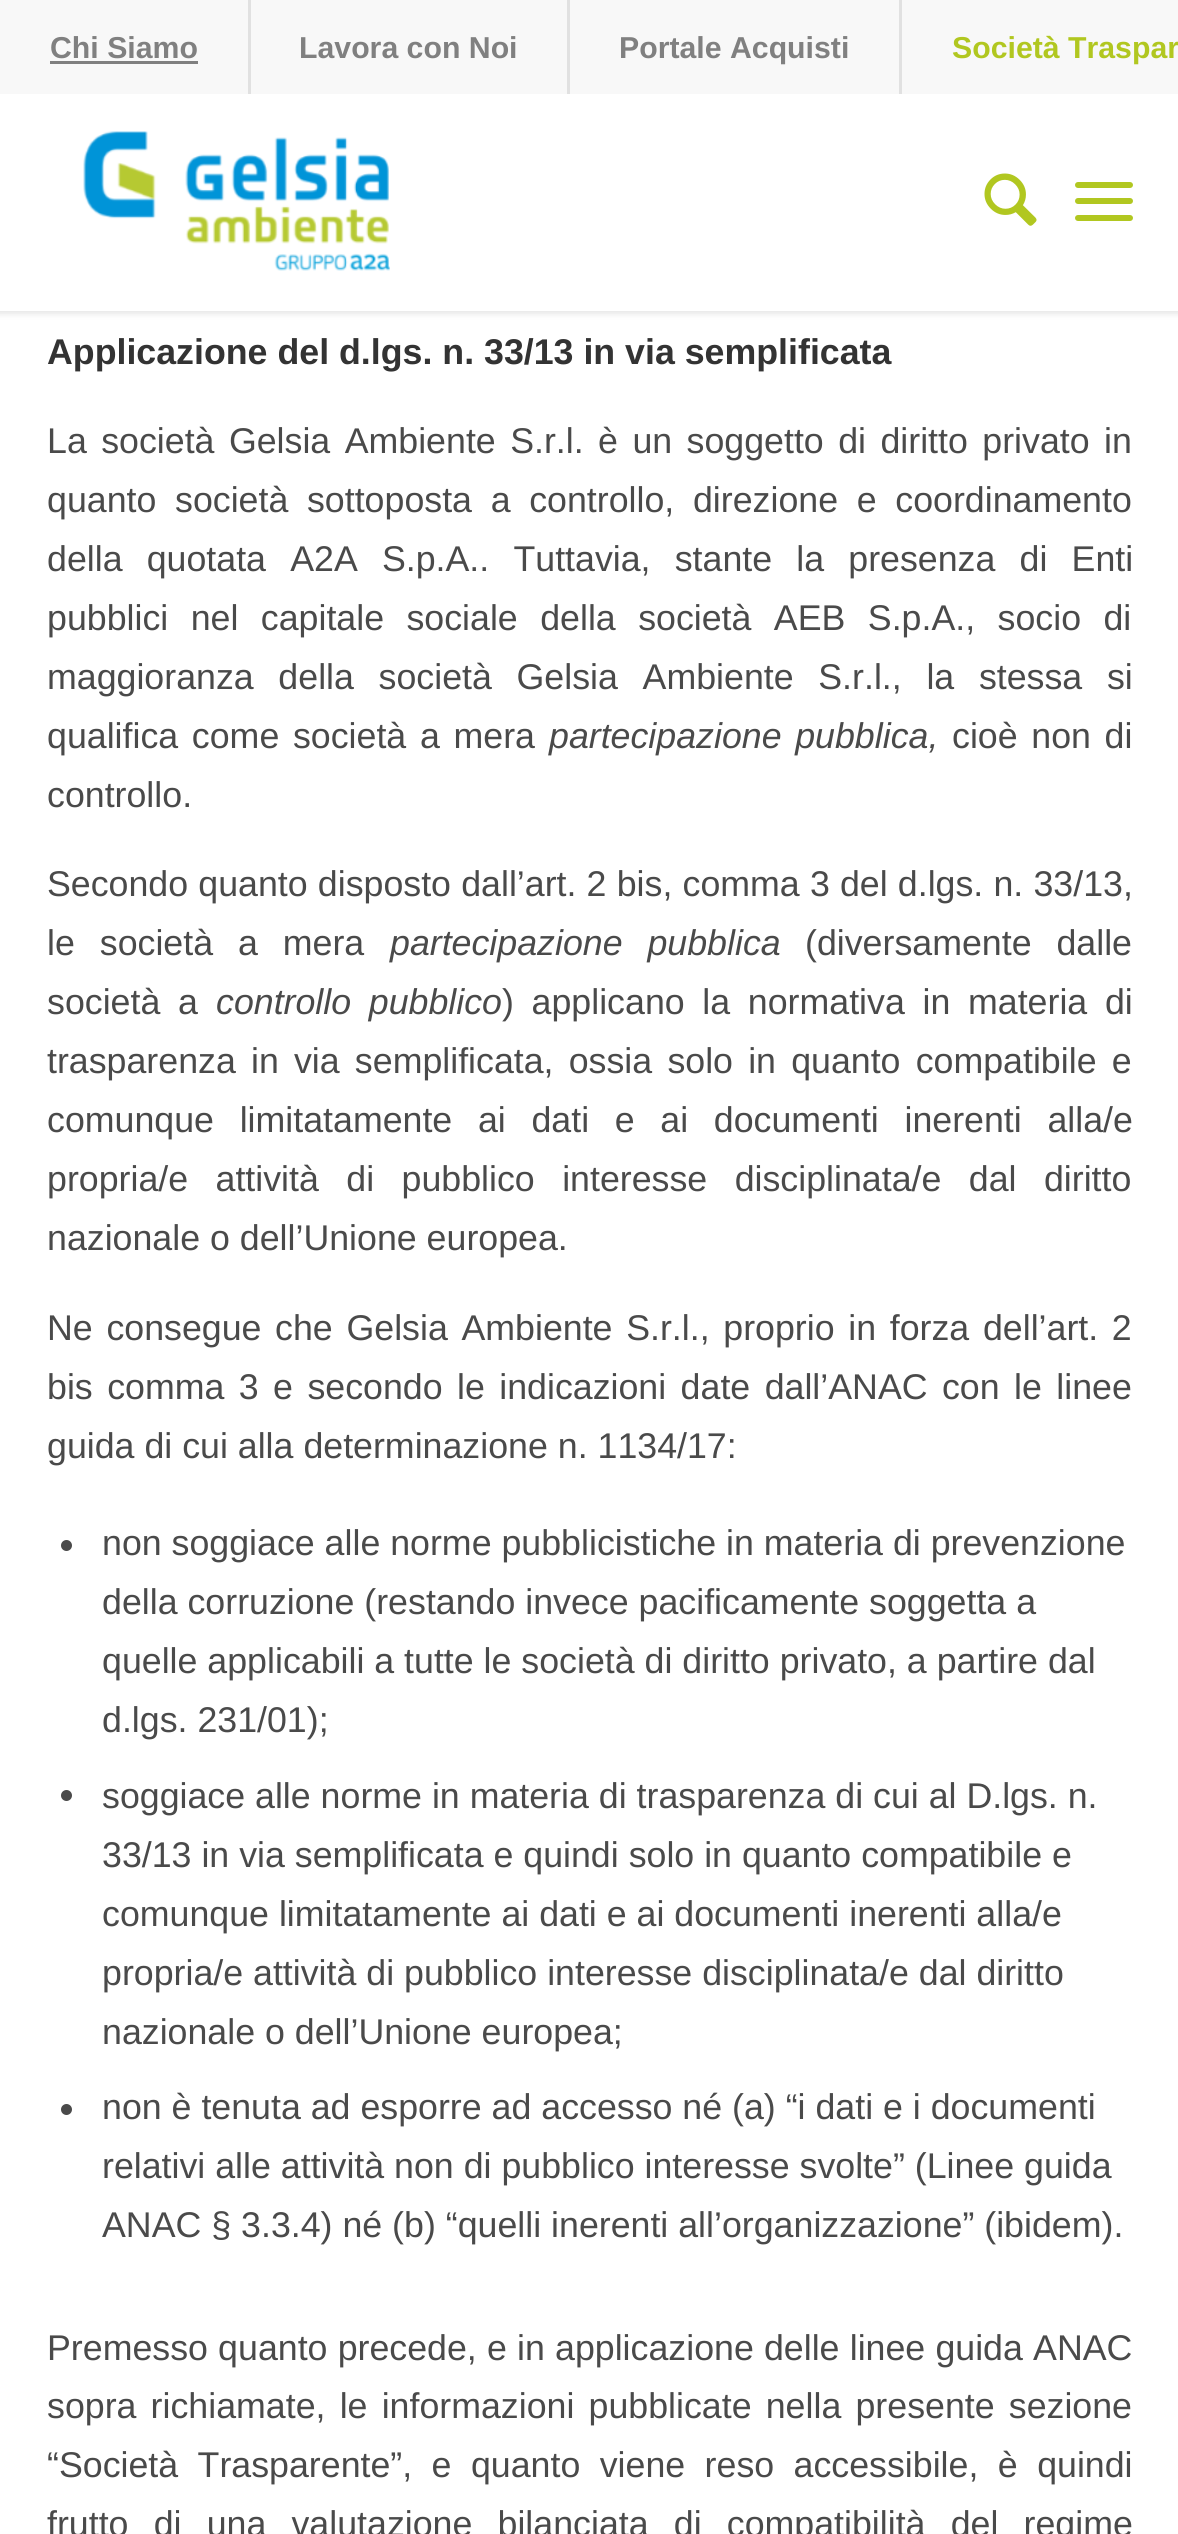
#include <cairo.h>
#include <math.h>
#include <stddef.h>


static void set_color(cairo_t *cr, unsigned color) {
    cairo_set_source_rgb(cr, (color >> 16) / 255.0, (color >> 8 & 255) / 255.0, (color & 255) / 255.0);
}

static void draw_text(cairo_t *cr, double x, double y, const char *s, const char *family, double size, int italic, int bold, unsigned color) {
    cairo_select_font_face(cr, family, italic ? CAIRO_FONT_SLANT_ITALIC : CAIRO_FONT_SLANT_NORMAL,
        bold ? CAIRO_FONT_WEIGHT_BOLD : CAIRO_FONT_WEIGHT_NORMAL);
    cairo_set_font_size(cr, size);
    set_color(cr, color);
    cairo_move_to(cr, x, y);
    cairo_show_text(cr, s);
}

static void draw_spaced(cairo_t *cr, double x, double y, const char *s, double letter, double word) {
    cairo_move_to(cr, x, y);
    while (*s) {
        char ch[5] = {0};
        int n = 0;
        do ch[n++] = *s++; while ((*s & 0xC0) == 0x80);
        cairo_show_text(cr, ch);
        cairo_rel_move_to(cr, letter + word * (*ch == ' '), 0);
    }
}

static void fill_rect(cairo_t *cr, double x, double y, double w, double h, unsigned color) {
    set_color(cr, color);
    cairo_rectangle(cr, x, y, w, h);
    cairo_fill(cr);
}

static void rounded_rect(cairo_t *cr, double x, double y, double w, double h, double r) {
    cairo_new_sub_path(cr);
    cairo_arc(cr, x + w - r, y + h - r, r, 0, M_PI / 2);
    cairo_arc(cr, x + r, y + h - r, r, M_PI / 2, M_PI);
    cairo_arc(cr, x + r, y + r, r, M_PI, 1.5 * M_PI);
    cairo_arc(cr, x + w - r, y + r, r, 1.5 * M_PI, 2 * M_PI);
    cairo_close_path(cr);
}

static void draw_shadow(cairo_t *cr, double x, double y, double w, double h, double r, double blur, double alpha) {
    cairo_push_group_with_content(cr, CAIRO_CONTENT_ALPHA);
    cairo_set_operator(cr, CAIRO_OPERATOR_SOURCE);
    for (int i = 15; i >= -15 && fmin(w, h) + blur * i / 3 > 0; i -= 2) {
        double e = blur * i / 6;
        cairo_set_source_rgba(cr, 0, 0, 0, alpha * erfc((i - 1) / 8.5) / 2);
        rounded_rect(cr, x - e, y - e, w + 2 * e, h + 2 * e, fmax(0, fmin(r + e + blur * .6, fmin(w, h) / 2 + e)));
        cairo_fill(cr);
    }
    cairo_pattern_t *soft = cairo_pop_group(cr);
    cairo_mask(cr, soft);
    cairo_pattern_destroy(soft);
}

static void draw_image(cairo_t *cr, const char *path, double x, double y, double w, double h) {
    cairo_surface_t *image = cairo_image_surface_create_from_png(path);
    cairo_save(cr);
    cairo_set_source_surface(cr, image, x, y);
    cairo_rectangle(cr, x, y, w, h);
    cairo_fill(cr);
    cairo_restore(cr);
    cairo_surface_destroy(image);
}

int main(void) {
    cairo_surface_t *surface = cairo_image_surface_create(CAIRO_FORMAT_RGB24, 1178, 2534);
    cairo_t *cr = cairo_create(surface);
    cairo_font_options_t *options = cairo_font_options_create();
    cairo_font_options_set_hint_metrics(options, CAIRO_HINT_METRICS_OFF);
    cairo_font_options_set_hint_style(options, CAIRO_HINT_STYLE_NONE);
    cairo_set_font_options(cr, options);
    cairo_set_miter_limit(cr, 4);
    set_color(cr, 0xFFFFFF);
    cairo_paint(cr);
    set_color(cr, 0x000000);
    draw_shadow(cr, -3, -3, 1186, 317, 0, 3, 0.1);
    fill_rect(cr, 0, 0, 1178, 94, 0xF8F8F8);
    fill_rect(cr, 248, 0, 3, 94, 0xE1E1E1);
    draw_text(cr, 50, 58, "Chi Siamo", "Liberation Sans", 30.25, 0, 1, 0x808080);
    fill_rect(cr, 50, 61, 148, 3, 0x808080);
    fill_rect(cr, 567, 0, 3, 94, 0xE1E1E1);
    draw_text(cr, 299, 58, "Lavora con Noi", "Liberation Sans", 30.25, 0, 1, 0x808080);
    fill_rect(cr, 899, 0, 3, 94, 0xE1E1E1);
    draw_text(cr, 619, 58, "Portale Acquisti", "Liberation Sans", 30.25, 0, 1, 0x808080);
    draw_text(cr, 952, 58, "Società Traspar", "Liberation Sans", 30.25, 0, 1, 0xB1C720);
    fill_rect(cr, 0, 94, 1178, 217, 0xFFFFFF);
    draw_image(cr, "assets/img1.png", 83, 131, 307, 140);
    draw_image(cr, "assets/img2.png", 984, 173, 53, 53);
    set_color(cr, 0xB1C720);
    rounded_rect(cr, 1075, 198, 58, 6, 3);
    cairo_fill(cr);
    rounded_rect(cr, 1075, 182, 58, 6, 3);
    cairo_fill(cr);
    rounded_rect(cr, 1075, 215, 58, 6, 3);
    cairo_fill(cr);
    draw_text(cr, 47, 364, "Applicazione del d.lgs. n. 33/13 in via semplificata", "Liberation Sans", 35.75, 0, 1, 0x333333);
    cairo_select_font_face(cr, "Liberation Sans", CAIRO_FONT_SLANT_NORMAL, CAIRO_FONT_WEIGHT_NORMAL);
    set_color(cr, 0x4A4A4A);
    draw_spaced(cr, 47, 453, "La società Gelsia Ambiente S.r.l. è un soggetto di diritto privato in", 0, 4.5);
    draw_spaced(cr, 47, 512, "quanto società sottoposta a controllo, direzione e coordinamento", 0, 8.75);
    draw_spaced(cr, 47, 571, "della quotata A2A S.p.A.. Tuttavia, stante la presenza di Enti", 0, 14.25);
    draw_spaced(cr, 47, 630, "pubblici nel capitale sociale della società AEB S.p.A., socio di", 0, 12.5);
    draw_spaced(cr, 47, 689, "maggioranza della società Gelsia Ambiente S.r.l., la stessa si", 0, 14.75);
    draw_spaced(cr, 47, 748, "qualifica come società a mera", 0, 3.75);
    cairo_select_font_face(cr, "Liberation Sans", CAIRO_FONT_SLANT_ITALIC, CAIRO_FONT_WEIGHT_NORMAL);
    draw_spaced(cr, 549, 748, "partecipazione pubblica,", 0, 3.75);
    cairo_select_font_face(cr, "Liberation Sans", CAIRO_FONT_SLANT_NORMAL, CAIRO_FONT_WEIGHT_NORMAL);
    draw_spaced(cr, 952, 748, "cioè non di", 0, 3.75);
    draw_text(cr, 47, 807, "controllo.", "Liberation Sans", 35.75, 0, 0, 0x4A4A4A);
    draw_spaced(cr, 47, 896, "Secondo quanto disposto dall’art. 2 bis, comma 3 del d.lgs. n. 33/13,", 0, 0.25);
    draw_spaced(cr, 47, 955, "le società a mera", 0, 15);
    cairo_select_font_face(cr, "Liberation Sans", CAIRO_FONT_SLANT_ITALIC, CAIRO_FONT_WEIGHT_NORMAL);
    draw_spaced(cr, 390, 955, "partecipazione pubblica", 0, 15);
    cairo_select_font_face(cr, "Liberation Sans", CAIRO_FONT_SLANT_NORMAL, CAIRO_FONT_WEIGHT_NORMAL);
    draw_spaced(cr, 805, 955, "(diversamente dalle", 0, 15);
    draw_spaced(cr, 47, 1014, "società a", 0, 7.75);
    cairo_select_font_face(cr, "Liberation Sans", CAIRO_FONT_SLANT_ITALIC, CAIRO_FONT_WEIGHT_NORMAL);
    draw_spaced(cr, 216, 1014, "controllo pubblico", 0, 7.75);
    cairo_select_font_face(cr, "Liberation Sans", CAIRO_FONT_SLANT_NORMAL, CAIRO_FONT_WEIGHT_NORMAL);
    draw_spaced(cr, 502, 1014, ") applicano la normativa in materia di", 0, 7.75);
    draw_spaced(cr, 47, 1073, "trasparenza in via semplificata, ossia solo in quanto compatibile e", 0, 5.25);
    draw_spaced(cr, 47, 1132, "comunque limitatamente ai dati e ai documenti inerenti alla/e", 0, 15.75);
    draw_spaced(cr, 47, 1191, "propria/e attività di pubblico interesse disciplinata/e dal diritto", 0, 17.5);
    draw_text(cr, 47, 1250, "nazionale o dell’Unione europea.", "Liberation Sans", 35.75, 0, 0, 0x4A4A4A);
    draw_spaced(cr, 47, 1340, "Ne consegue che Gelsia Ambiente S.r.l., proprio in forza dell’art. 2", 0, 3.75);
    draw_spaced(cr, 47, 1399, "bis comma 3 e secondo le indicazioni date dall’ANAC con le linee", 0, 4.5);
    draw_text(cr, 47, 1458, "guida di cui alla determinazione n. 1134/17:", "Liberation Sans", 35.75, 0, 0, 0x4A4A4A);
    cairo_new_path(cr);
    cairo_arc(cr, 66.5, 1545.5, 5.5, 0, 2 * M_PI);
    cairo_fill(cr);
    draw_text(cr, 102, 1555, "non soggiace alle norme pubblicistiche in materia di prevenzione", "Liberation Sans", 35.75, 0, 0, 0x4A4A4A);
    draw_text(cr, 102, 1614, "della corruzione (restando invece pacificamente soggetta a", "Liberation Sans", 35.75, 0, 0, 0x4A4A4A);
    draw_text(cr, 102, 1673, "quelle applicabili a tutte le società di diritto privato, a partire dal", "Liberation Sans", 35.75, 0, 0, 0x4A4A4A);
    draw_text(cr, 102, 1732, "d.lgs. 231/01);", "Liberation Sans", 35.75, 0, 0, 0x4A4A4A);
    cairo_new_path(cr);
    cairo_arc(cr, 66.5, 1795.5, 5.5, 0, 2 * M_PI);
    cairo_fill(cr);
    draw_text(cr, 102, 1808, "soggiace alle norme in materia di trasparenza di cui al D.lgs. n.", "Liberation Sans", 35.75, 0, 0, 0x4A4A4A);
    draw_text(cr, 102, 1867, "33/13 in via semplificata e quindi solo in quanto compatibile e", "Liberation Sans", 35.75, 0, 0, 0x4A4A4A);
    draw_text(cr, 102, 1926, "comunque limitatamente ai dati e ai documenti inerenti alla/e", "Liberation Sans", 35.75, 0, 0, 0x4A4A4A);
    draw_text(cr, 102, 1985, "propria/e attività di pubblico interesse disciplinata/e dal diritto", "Liberation Sans", 35.75, 0, 0, 0x4A4A4A);
    draw_text(cr, 102, 2044, "nazionale o dell’Unione europea;", "Liberation Sans", 35.75, 0, 0, 0x4A4A4A);
    cairo_new_path(cr);
    cairo_arc(cr, 66.5, 2109.5, 5.5, 0, 2 * M_PI);
    cairo_fill(cr);
    draw_text(cr, 102, 2119, "non è tenuta ad esporre ad accesso né (a) “i dati e i documenti", "Liberation Sans", 35.75, 0, 0, 0x4A4A4A);
    draw_text(cr, 102, 2178, "relativi alle attività non di pubblico interesse svolte” (Linee guida", "Liberation Sans", 35.75, 0, 0, 0x4A4A4A);
    draw_text(cr, 102, 2237, "ANAC § 3.3.4) né (b) “quelli inerenti all’organizzazione” (ibidem).", "Liberation Sans", 35.75, 0, 0, 0x4A4A4A);
    draw_spaced(cr, 47, 2360, "Premesso quanto precede, e in applicazione delle linee guida ANAC", 0, 0.25);
    draw_spaced(cr, 47, 2418, "sopra richiamate, le informazioni pubblicate nella presente sezione", 0, 4.25);
    draw_spaced(cr, 47, 2477, "“Società Trasparente”, e quanto viene reso accessibile, è quindi", 0, 9.5);
    draw_spaced(cr, 47, 2536, "frutto di una valutazione bilanciata di compatibilità del regime", 0, 15.25);
    cairo_surface_write_to_png(surface, "output.png");
    cairo_font_options_destroy(options);
    cairo_destroy(cr);
    cairo_surface_destroy(surface);
    return 0;
}
